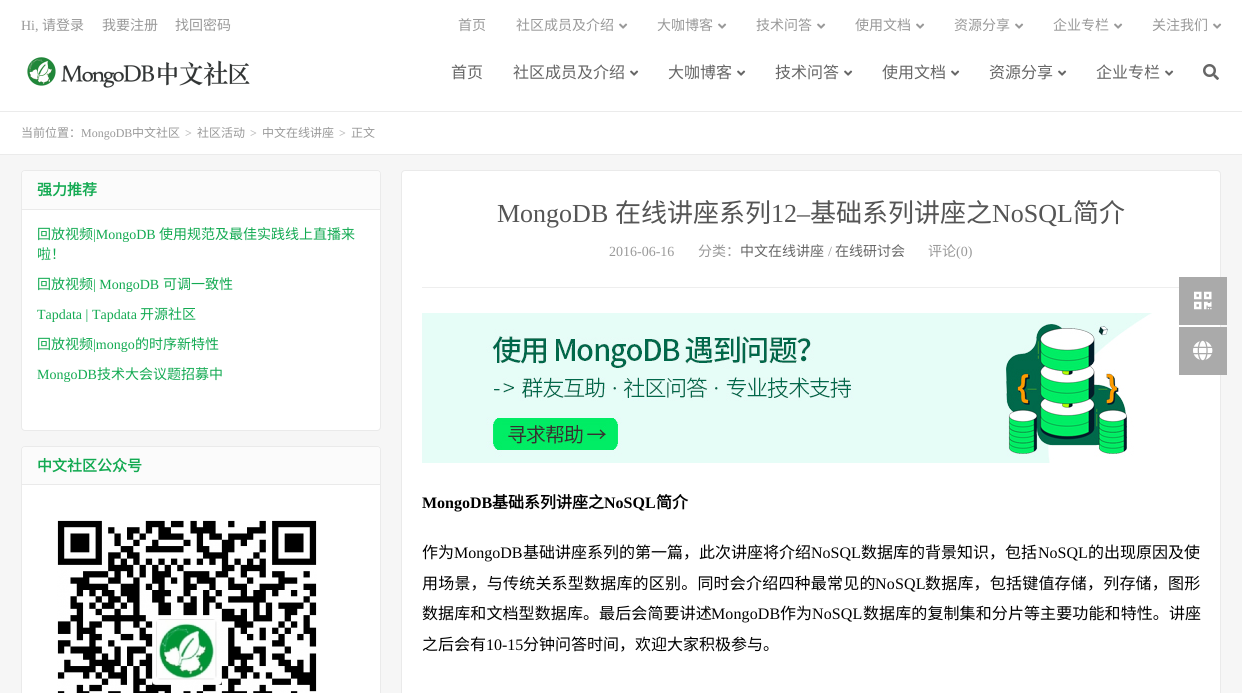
#include <cairo.h>
#include <math.h>
#include <stddef.h>


static void set_color(cairo_t *cr, unsigned color) {
    cairo_set_source_rgb(cr, (color >> 16) / 255.0, (color >> 8 & 255) / 255.0, (color & 255) / 255.0);
}

static void draw_text(cairo_t *cr, double x, double y, const char *s, const char *family, double size, int italic, int bold, unsigned color) {
    cairo_select_font_face(cr, family, italic ? CAIRO_FONT_SLANT_ITALIC : CAIRO_FONT_SLANT_NORMAL,
        bold ? CAIRO_FONT_WEIGHT_BOLD : CAIRO_FONT_WEIGHT_NORMAL);
    cairo_set_font_size(cr, size);
    set_color(cr, color);
    cairo_move_to(cr, x, y);
    cairo_show_text(cr, s);
}

static void draw_spaced(cairo_t *cr, double x, double y, const char *s, double letter, double word) {
    cairo_move_to(cr, x, y);
    while (*s) {
        char ch[5] = {0};
        int n = 0;
        do ch[n++] = *s++; while ((*s & 0xC0) == 0x80);
        cairo_show_text(cr, ch);
        cairo_rel_move_to(cr, letter + word * (*ch == ' '), 0);
    }
}

static void fill_rect(cairo_t *cr, double x, double y, double w, double h, unsigned color) {
    set_color(cr, color);
    cairo_rectangle(cr, x, y, w, h);
    cairo_fill(cr);
}

static void rounded_rect(cairo_t *cr, double x, double y, double w, double h, double r) {
    cairo_new_sub_path(cr);
    cairo_arc(cr, x + w - r, y + h - r, r, 0, M_PI / 2);
    cairo_arc(cr, x + r, y + h - r, r, M_PI / 2, M_PI);
    cairo_arc(cr, x + r, y + r, r, M_PI, 1.5 * M_PI);
    cairo_arc(cr, x + w - r, y + r, r, 1.5 * M_PI, 2 * M_PI);
    cairo_close_path(cr);
}

static void draw_image(cairo_t *cr, const char *path, double x, double y, double w, double h) {
    cairo_surface_t *image = cairo_image_surface_create_from_png(path);
    cairo_save(cr);
    cairo_set_source_surface(cr, image, x, y);
    cairo_rectangle(cr, x, y, w, h);
    cairo_fill(cr);
    cairo_restore(cr);
    cairo_surface_destroy(image);
}

int main(void) {
    cairo_surface_t *surface = cairo_image_surface_create(CAIRO_FORMAT_RGB24, 1242, 693);
    cairo_t *cr = cairo_create(surface);
    cairo_font_options_t *options = cairo_font_options_create();
    cairo_font_options_set_hint_metrics(options, CAIRO_HINT_METRICS_OFF);
    cairo_font_options_set_hint_style(options, CAIRO_HINT_STYLE_NONE);
    cairo_set_font_options(cr, options);
    cairo_set_miter_limit(cr, 4);
    set_color(cr, 0xF6F6F6);
    cairo_paint(cr);
    fill_rect(cr, 0, 0, 1242, 111, 0xFFFFFF);
    fill_rect(cr, 0, 111, 1242, 1, 0xEBEBEB);
    draw_text(cr, 21, 30, "Hi,", "Liberation Serif", 14, 0, 0, 0x999999);
    draw_text(cr, 42, 30, "请登录", "Noto Sans CJK SC", 14, 0, 0, 0x999999);
    draw_text(cr, 102, 30, "我要注册", "Noto Sans CJK SC", 14, 0, 0, 0x999999);
    draw_text(cr, 175, 30, "找回密码", "Noto Sans CJK SC", 14, 0, 0, 0x999999);
    draw_text(cr, 458, 30, "首页", "Noto Sans CJK SC", 14, 0, 0, 0x999999);
    draw_text(cr, 516, 30, "社区成员及介绍", "Noto Sans CJK SC", 14, 0, 0, 0x999999);
    draw_image(cr, "assets/img1.png", 619, 23, 9, 6);
    draw_text(cr, 657, 30, "大咖博客", "Noto Sans CJK SC", 14, 0, 0, 0x999999);
    draw_image(cr, "assets/img1.png", 718, 23, 9, 6);
    draw_text(cr, 756, 30, "技术问答", "Noto Sans CJK SC", 14, 0, 0, 0x999999);
    draw_image(cr, "assets/img1.png", 817, 23, 9, 6);
    draw_text(cr, 855, 30, "使用文档", "Noto Sans CJK SC", 14, 0, 0, 0x999999);
    draw_image(cr, "assets/img1.png", 916, 23, 9, 6);
    draw_text(cr, 954, 30, "资源分享", "Noto Sans CJK SC", 14, 0, 0, 0x999999);
    draw_image(cr, "assets/img1.png", 1015, 23, 9, 6);
    draw_text(cr, 1053, 30, "企业专栏", "Noto Sans CJK SC", 14, 0, 0, 0x999999);
    draw_image(cr, "assets/img1.png", 1114, 23, 9, 6);
    draw_text(cr, 1152, 30, "关注我们", "Noto Sans CJK SC", 14, 0, 0, 0x999999);
    draw_image(cr, "assets/img1.png", 1213, 23, 9, 6);
    draw_image(cr, "assets/img2.png", 27, 57, 223, 31);
    draw_text(cr, 451, 78, "首页", "Noto Sans CJK SC", 16, 0, 0, 0x666666);
    draw_text(cr, 513, 78, "社区成员及介绍", "Noto Sans CJK SC", 16, 0, 0, 0x666666);
    draw_image(cr, "assets/img3.png", 630, 70, 9, 6);
    draw_text(cr, 668, 78, "大咖博客", "Noto Sans CJK SC", 16, 0, 0, 0x666666);
    draw_image(cr, "assets/img3.png", 737, 70, 9, 6);
    draw_text(cr, 775, 78, "技术问答", "Noto Sans CJK SC", 16, 0, 0, 0x666666);
    draw_image(cr, "assets/img3.png", 844, 70, 9, 6);
    draw_text(cr, 882, 78, "使用文档", "Noto Sans CJK SC", 16, 0, 0, 0x666666);
    draw_image(cr, "assets/img3.png", 951, 70, 9, 6);
    draw_text(cr, 989, 78, "资源分享", "Noto Sans CJK SC", 16, 0, 0, 0x666666);
    draw_image(cr, "assets/img3.png", 1058, 70, 9, 6);
    draw_text(cr, 1096, 78, "企业专栏", "Noto Sans CJK SC", 16, 0, 0, 0x666666);
    draw_image(cr, "assets/img3.png", 1165, 70, 9, 6);
    draw_image(cr, "assets/img4.png", 1203, 64, 16, 16);
    fill_rect(cr, 0, 112, 1242, 42, 0xFFFFFF);
    fill_rect(cr, 0, 154, 1242, 1, 0xEBEBEB);
    draw_text(cr, 21, 137, "当前位置：", "Noto Sans CJK SC", 12, 0, 0, 0x999999);
    draw_text(cr, 81, 137, "MongoDB", "Liberation Serif", 12, 0, 0, 0x999999);
    draw_text(cr, 132, 137, "中文社区", "Noto Sans CJK SC", 12, 0, 0, 0x999999);
    draw_text(cr, 185, 137, ">", "Liberation Serif", 12, 0, 1, 0xBBBBBB);
    draw_text(cr, 197, 137, "社区活动", "Noto Sans CJK SC", 12, 0, 0, 0x999999);
    draw_text(cr, 250, 137, ">", "Liberation Serif", 12, 0, 1, 0xBBBBBB);
    draw_text(cr, 262, 137, "中文在线讲座", "Noto Sans CJK SC", 12, 0, 0, 0x999999);
    draw_text(cr, 339, 137, ">", "Liberation Serif", 12, 0, 1, 0xBBBBBB);
    draw_text(cr, 351, 137, "正文", "Noto Sans CJK SC", 12, 0, 0, 0x999999);
    set_color(cr, 0xFFFFFF);
    rounded_rect(cr, 21.5, 170.5, 359, 260, 3.5);
    cairo_fill_preserve(cr);
    set_color(cr, 0xEAEAEA);
    cairo_set_line_width(cr, 1);
    cairo_stroke(cr);
    set_color(cr, 0xFBFBFB);
    cairo_new_path(cr);
    cairo_move_to(cr, 25, 171);
    cairo_line_to(cr, 377, 171);
    cairo_curve_to(cr, 378.5, 171, 380, 172.5, 380, 174);
    cairo_line_to(cr, 380, 210);
    cairo_line_to(cr, 22, 210);
    cairo_line_to(cr, 22, 174);
    cairo_curve_to(cr, 22, 172.5, 23.5, 171, 25, 171);
    cairo_close_path(cr);
    cairo_fill(cr);
    fill_rect(cr, 22, 209, 358, 1, 0xEAEAEA);
    draw_text(cr, 37, 195, "强力推荐", "Noto Sans CJK SC", 15, 0, 1, 0x13AA52);
    draw_text(cr, 37, 239, "回放视频", "Noto Sans CJK SC", 14, 0, 0, 0x13AA52);
    draw_text(cr, 93, 239, "|MongoDB", "Liberation Serif", 14, 0, 0, 0x13AA52);
    draw_text(cr, 159, 239, "使用规范及最佳实践线上直播来", "Noto Sans CJK SC", 14, 0, 0, 0x13AA52);
    draw_text(cr, 37, 259, "啦！", "Noto Sans CJK SC", 14, 0, 0, 0x13AA52);
    draw_text(cr, 37, 289, "回放视频", "Noto Sans CJK SC", 14, 0, 0, 0x13AA52);
    draw_text(cr, 93, 289, "| MongoDB", "Liberation Serif", 14, 0, 0, 0x13AA52);
    draw_text(cr, 163, 289, "可调一致性", "Noto Sans CJK SC", 14, 0, 0, 0x13AA52);
    draw_text(cr, 37, 319, "Tapdata | Tapdata", "Liberation Serif", 14, 0, 0, 0x13AA52);
    draw_text(cr, 140, 319, "开源社区", "Noto Sans CJK SC", 14, 0, 0, 0x13AA52);
    draw_text(cr, 37, 349, "回放视频", "Noto Sans CJK SC", 14, 0, 0, 0x13AA52);
    draw_text(cr, 93, 349, "|mongo", "Liberation Serif", 14, 0, 0, 0x13AA52);
    draw_text(cr, 135, 349, "的时序新特性", "Noto Sans CJK SC", 14, 0, 0, 0x13AA52);
    draw_text(cr, 37, 379, "MongoDB", "Liberation Serif", 14, 0, 0, 0x13AA52);
    draw_text(cr, 97, 379, "技术大会议题招募中", "Noto Sans CJK SC", 14, 0, 0, 0x13AA52);
    set_color(cr, 0xFFFFFF);
    rounded_rect(cr, 21.5, 446.5, 359, 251, 3.5);
    cairo_fill_preserve(cr);
    set_color(cr, 0xEAEAEA);
    cairo_stroke(cr);
    set_color(cr, 0xFBFBFB);
    cairo_new_path(cr);
    cairo_move_to(cr, 25, 447);
    cairo_line_to(cr, 377, 447);
    cairo_curve_to(cr, 378.5, 447, 380, 448.5, 380, 450);
    cairo_line_to(cr, 380, 485);
    cairo_line_to(cr, 22, 485);
    cairo_line_to(cr, 22, 450);
    cairo_curve_to(cr, 22, 448.5, 23.5, 447, 25, 447);
    cairo_close_path(cr);
    cairo_fill(cr);
    fill_rect(cr, 22, 484, 358, 1, 0xEAEAEA);
    draw_text(cr, 37, 471, "中文社区公众号", "Noto Sans CJK SC", 15, 0, 1, 0x13AA52);
    draw_image(cr, "assets/img5.png", 57, 520, 260, 173);
    set_color(cr, 0xFFFFFF);
    rounded_rect(cr, 401.5, 170.5, 819, 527, 3.5);
    cairo_fill_preserve(cr);
    set_color(cr, 0xEAEAEA);
    cairo_stroke(cr);
    fill_rect(cr, 422, 287, 757, 1, 0xEEEEEE);
    draw_text(cr, 497, 222, "MongoDB", "Liberation Serif", 26, 0, 0, 0x555555);
    draw_text(cr, 615, 222, "在线讲座系列", "Noto Sans CJK SC", 26, 0, 0, 0x555555);
    draw_text(cr, 771, 222, "12–", "Liberation Serif", 26, 0, 0, 0x555555);
    draw_text(cr, 810, 222, "基础系列讲座之", "Noto Sans CJK SC", 26, 0, 0, 0x555555);
    draw_text(cr, 992, 222, "NoSQL", "Liberation Serif", 26, 0, 0, 0x555555);
    draw_text(cr, 1073, 222, "简介", "Noto Sans CJK SC", 26, 0, 0, 0x555555);
    draw_text(cr, 609, 256, "2016-06-16", "Liberation Serif", 14, 0, 0, 0x999999);
    draw_text(cr, 698, 256, "分类：", "Noto Sans CJK SC", 14, 0, 0, 0x999999);
    draw_text(cr, 740, 256, "中文在线讲座", "Noto Sans CJK SC", 14, 0, 0, 0x666666);
    draw_text(cr, 828, 256, "/", "Liberation Serif", 14, 0, 0, 0x999999);
    draw_text(cr, 835, 256, "在线研讨会", "Noto Sans CJK SC", 14, 0, 0, 0x666666);
    draw_text(cr, 928, 256, "评论", "Noto Sans CJK SC", 14, 0, 0, 0x999999);
    draw_text(cr, 956, 256, "(0)", "Liberation Serif", 14, 0, 0, 0x999999);
    draw_image(cr, "assets/img6.png", 422, 313, 730, 150);
    draw_text(cr, 422, 508, "MongoDB", "Liberation Serif", 16, 0, 1, 0x000000);
    draw_text(cr, 492, 508, "基础系列讲座之", "Noto Sans CJK SC", 16, 0, 1, 0x000000);
    draw_text(cr, 604, 508, "NoSQL", "Liberation Serif", 16, 0, 1, 0x000000);
    draw_text(cr, 656, 508, "简介", "Noto Sans CJK SC", 16, 0, 1, 0x000000);
    draw_text(cr, 422, 558, "作为", "Noto Sans CJK SC", 16, 0, 0, 0x000000);
    draw_text(cr, 454, 558, "MongoDB", "Liberation Serif", 16, 0, 0, 0x000000);
    draw_text(cr, 523, 558, "基础讲座系列的第一篇，此次讲座将介绍", "Noto Sans CJK SC", 16, 0, 0, 0x000000);
    draw_text(cr, 811, 558, "NoSQL", "Liberation Serif", 16, 0, 0, 0x000000);
    draw_text(cr, 861, 558, "数据库的背景知识，包括", "Noto Sans CJK SC", 16, 0, 0, 0x000000);
    draw_text(cr, 1038, 558, "NoSQL", "Liberation Serif", 16, 0, 0, 0x000000);
    draw_text(cr, 1088, 558, "的出现原因及使", "Noto Sans CJK SC", 16, 0, 0, 0x000000);
    draw_spaced(cr, 422, 589, "用场景，与传统关系型数据库的区别。同时会介绍四种最常见的", 0.2, 0);
    cairo_select_font_face(cr, "Liberation Serif", CAIRO_FONT_SLANT_NORMAL, CAIRO_FONT_WEIGHT_NORMAL);
    draw_spaced(cr, 875, 589, "NoSQL", 0.2, 0);
    cairo_select_font_face(cr, "Noto Sans CJK SC", CAIRO_FONT_SLANT_NORMAL, CAIRO_FONT_WEIGHT_NORMAL);
    draw_spaced(cr, 925, 589, "数据库，包括键值存储，列存储，图形", 0.2, 0);
    draw_spaced(cr, 422, 619, "数据库和文档型数据库。最后会简要讲述", 0.1, 0);
    cairo_select_font_face(cr, "Liberation Serif", CAIRO_FONT_SLANT_NORMAL, CAIRO_FONT_WEIGHT_NORMAL);
    draw_spaced(cr, 711, 619, "MongoDB", 0.1, 0);
    cairo_select_font_face(cr, "Noto Sans CJK SC", CAIRO_FONT_SLANT_NORMAL, CAIRO_FONT_WEIGHT_NORMAL);
    draw_spaced(cr, 780, 619, "作为", 0.1, 0);
    cairo_select_font_face(cr, "Liberation Serif", CAIRO_FONT_SLANT_NORMAL, CAIRO_FONT_WEIGHT_NORMAL);
    draw_spaced(cr, 812, 619, "NoSQL", 0.1, 0);
    cairo_select_font_face(cr, "Noto Sans CJK SC", CAIRO_FONT_SLANT_NORMAL, CAIRO_FONT_WEIGHT_NORMAL);
    draw_spaced(cr, 863, 619, "数据库的复制集和分片等主要功能和特性。讲座", 0.1, 0);
    draw_text(cr, 422, 650, "之后会有", "Noto Sans CJK SC", 16, 0, 0, 0x000000);
    draw_text(cr, 486, 650, "10-15", "Liberation Serif", 16, 0, 0, 0x000000);
    draw_text(cr, 523, 650, "分钟问答时间，欢迎大家积极参与。", "Noto Sans CJK SC", 16, 0, 0, 0x000000);
    fill_rect(cr, 1179, 277, 48, 48, 0xAAAAAA);
    draw_image(cr, "assets/img7.png", 1194, 291, 18, 19);
    fill_rect(cr, 1179, 327, 48, 48, 0xAAAAAA);
    draw_image(cr, "assets/img8.png", 1193, 340, 20, 21);
    cairo_surface_write_to_png(surface, "output.png");
    cairo_font_options_destroy(options);
    cairo_destroy(cr);
    cairo_surface_destroy(surface);
    return 0;
}
